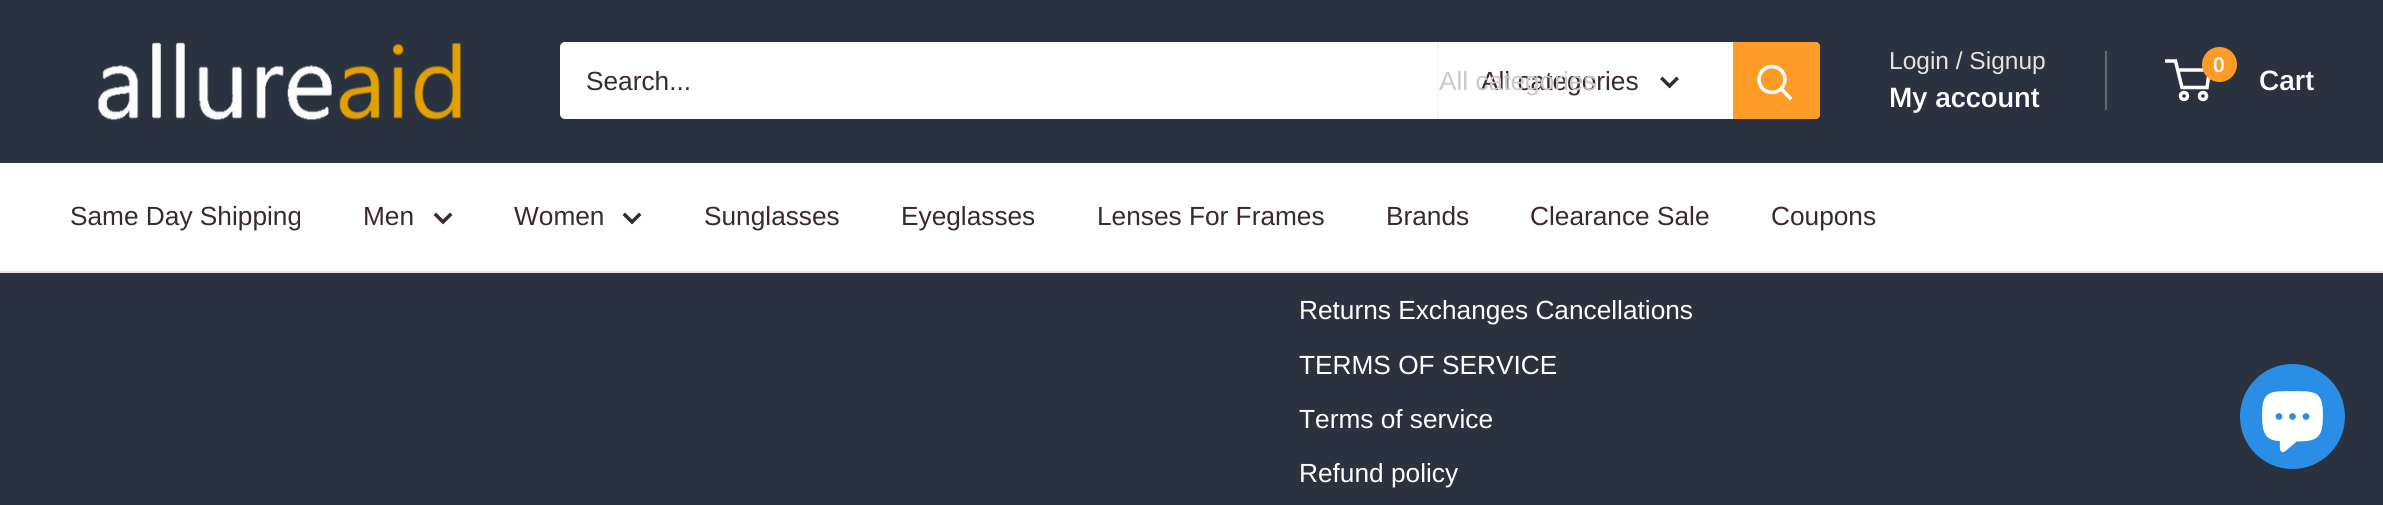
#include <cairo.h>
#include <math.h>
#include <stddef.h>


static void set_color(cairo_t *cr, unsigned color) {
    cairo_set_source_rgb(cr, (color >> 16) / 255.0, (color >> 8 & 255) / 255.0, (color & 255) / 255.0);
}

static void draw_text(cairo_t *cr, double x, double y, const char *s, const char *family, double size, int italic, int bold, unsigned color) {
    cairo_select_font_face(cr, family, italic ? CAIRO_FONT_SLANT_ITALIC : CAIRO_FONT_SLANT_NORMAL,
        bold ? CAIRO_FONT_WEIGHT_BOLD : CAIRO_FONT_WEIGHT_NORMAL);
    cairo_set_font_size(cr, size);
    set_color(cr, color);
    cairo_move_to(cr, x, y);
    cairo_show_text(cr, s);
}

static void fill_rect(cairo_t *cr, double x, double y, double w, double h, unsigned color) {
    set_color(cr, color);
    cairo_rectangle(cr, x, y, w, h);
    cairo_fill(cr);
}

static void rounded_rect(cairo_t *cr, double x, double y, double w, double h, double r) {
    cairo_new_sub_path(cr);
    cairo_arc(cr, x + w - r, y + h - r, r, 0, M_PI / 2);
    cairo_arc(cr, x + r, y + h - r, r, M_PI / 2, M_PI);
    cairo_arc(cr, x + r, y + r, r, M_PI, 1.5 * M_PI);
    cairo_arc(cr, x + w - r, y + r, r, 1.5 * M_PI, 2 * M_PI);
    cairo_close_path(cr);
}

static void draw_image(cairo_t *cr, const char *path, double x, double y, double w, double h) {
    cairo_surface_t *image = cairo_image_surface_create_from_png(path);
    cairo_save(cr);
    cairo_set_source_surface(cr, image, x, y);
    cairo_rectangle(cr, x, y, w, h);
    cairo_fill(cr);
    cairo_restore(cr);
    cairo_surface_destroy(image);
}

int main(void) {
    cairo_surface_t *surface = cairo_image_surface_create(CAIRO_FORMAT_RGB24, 2383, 505);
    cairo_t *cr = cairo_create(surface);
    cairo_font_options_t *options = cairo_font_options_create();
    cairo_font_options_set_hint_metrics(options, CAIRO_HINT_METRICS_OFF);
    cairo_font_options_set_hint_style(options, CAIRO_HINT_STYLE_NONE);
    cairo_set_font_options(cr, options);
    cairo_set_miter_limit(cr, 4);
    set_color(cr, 0x2A3240);
    cairo_paint(cr);
    draw_image(cr, "assets/img1.png", 98, 42, 364, 79);
    set_color(cr, 0xFFFFFF);
    rounded_rect(cr, 560, 42, 1260, 77, 5);
    cairo_fill(cr);
    draw_text(cr, 586, 90, "Search...", "Arimo", 26.25, 0, 0, 0x3A2A2F);
    fill_rect(cr, 1437, 42, 2, 77, 0xF8F6F5);
    draw_text(cr, 1481, 90, "All categories", "Arimo", 26.25, 0, 0, 0x3A2A2F);
    draw_text(cr, 1439, 90, "All categories", "Arimo", 26.25, 0, 0, 0xCCC8C9);
    cairo_new_path(cr);
    cairo_move_to(cr, 1676.5, 79);
    cairo_line_to(cr, 1669.5, 86);
    cairo_line_to(cr, 1662.5, 79);
    set_color(cr, 0x3A2A2F);
    cairo_set_line_width(cr, 3.5);
    cairo_set_line_cap(cr, CAIRO_LINE_CAP_SQUARE);
    cairo_stroke(cr);
    set_color(cr, 0xFF9C28);
    cairo_new_path(cr);
    cairo_move_to(cr, 1733, 42);
    cairo_line_to(cr, 1815, 42);
    cairo_curve_to(cr, 1818, 42, 1820, 44, 1820, 47);
    cairo_line_to(cr, 1820, 114);
    cairo_curve_to(cr, 1820, 117, 1818, 119, 1815, 119);
    cairo_line_to(cr, 1733, 119);
    cairo_close_path(cr);
    cairo_fill(cr);
    cairo_new_path(cr);
    cairo_move_to(cr, 1790, 98);
    cairo_line_to(cr, 1781.5, 89);
    set_color(cr, 0xFFFFFF);
    cairo_stroke(cr);
    cairo_arc(cr, 1772, 79.5, 13, 0, 2 * M_PI);
    cairo_set_line_cap(cr, CAIRO_LINE_CAP_BUTT);
    cairo_stroke(cr);
    draw_text(cr, 1889, 69, "Login / Signup", "Arimo", 24.5, 0, 0, 0xE9E2DD);
    fill_rect(cr, 2105, 51, 2, 59, 0x63676F);
    draw_text(cr, 1889, 107, "My account", "Arimo SemiBold", 28, 0, 0, 0xFFFFFF);
    cairo_new_path(cr);
    cairo_arc(cr, 2184, 96, 3.5, 0, 2 * M_PI);
    cairo_stroke(cr);
    cairo_arc(cr, 2203, 96, 3.5, 0, 2 * M_PI);
    cairo_stroke(cr);
    cairo_new_path(cr);
    cairo_move_to(cr, 2177.5, 70);
    cairo_line_to(cr, 2209.5, 70);
    cairo_line_to(cr, 2207, 87.5);
    cairo_line_to(cr, 2182, 87.5);
    cairo_line_to(cr, 2175.5, 61);
    cairo_line_to(cr, 2165, 61);
    cairo_stroke(cr);
    set_color(cr, 0xFF9C28);
    cairo_arc(cr, 2219.5, 64.5, 17.5, 0, 2 * M_PI);
    cairo_fill(cr);
    draw_text(cr, 2213, 72, "0", "Arimo SemiBold", 21, 0, 0, 0xFFFFFF);
    draw_text(cr, 2259, 90, "Cart", "Arimo SemiBold", 28, 0, 0, 0xFFFFFF);
    fill_rect(cr, 0, 163, 2383, 108, 0xFFFFFF);
    fill_rect(cr, 0, 271, 2383, 2, 0xE7E2DE);
    draw_text(cr, 70, 225, "Same Day Shipping", "Arimo", 26.25, 0, 0, 0x3A2A2F);
    draw_text(cr, 363, 225, "Men", "Arimo", 26.25, 0, 0, 0x3A2A2F);
    cairo_new_path(cr);
    cairo_move_to(cr, 450, 215);
    cairo_line_to(cr, 443, 222);
    cairo_line_to(cr, 436, 215);
    cairo_set_line_cap(cr, CAIRO_LINE_CAP_SQUARE);
    cairo_stroke(cr);
    draw_text(cr, 514, 225, "Women", "Arimo", 26.25, 0, 0, 0x3A2A2F);
    cairo_new_path(cr);
    cairo_move_to(cr, 639, 215);
    cairo_line_to(cr, 632, 222);
    cairo_line_to(cr, 625, 215);
    cairo_stroke(cr);
    draw_text(cr, 704, 225, "Sunglasses", "Arimo", 26.25, 0, 0, 0x3A2A2F);
    draw_text(cr, 901, 225, "Eyeglasses", "Arimo", 26.25, 0, 0, 0x3A2A2F);
    draw_text(cr, 1097, 225, "Lenses For Frames", "Arimo", 26.25, 0, 0, 0x3A2A2F);
    draw_text(cr, 1386, 225, "Brands", "Arimo", 26.25, 0, 0, 0x3A2A2F);
    draw_text(cr, 1530, 225, "Clearance Sale", "Arimo", 26.25, 0, 0, 0x3A2A2F);
    draw_text(cr, 1771, 225, "Coupons", "Arimo", 26.25, 0, 0, 0x3A2A2F);
    draw_text(cr, 1299, 319, "Returns Exchanges Cancellations", "Arimo", 26.25, 0, 0, 0xFFFFFF);
    draw_text(cr, 1299, 374, "TERMS OF SERVICE", "Arimo", 26.25, 0, 0, 0xFFFFFF);
    draw_text(cr, 1299, 428, "Terms of service", "Arimo", 26.25, 0, 0, 0xFFFFFF);
    draw_text(cr, 1299, 482, "Refund policy", "Arimo", 26.25, 0, 0, 0xFFFFFF);
    set_color(cr, 0x2A8EE7);
    cairo_new_path(cr);
    cairo_arc(cr, 2292.5, 416.5, 52.5, 0, 2 * M_PI);
    cairo_fill(cr);
    draw_image(cr, "assets/img2.png", 2262, 391, 61, 61);
    cairo_surface_write_to_png(surface, "output.png");
    cairo_font_options_destroy(options);
    cairo_destroy(cr);
    cairo_surface_destroy(surface);
    return 0;
}
